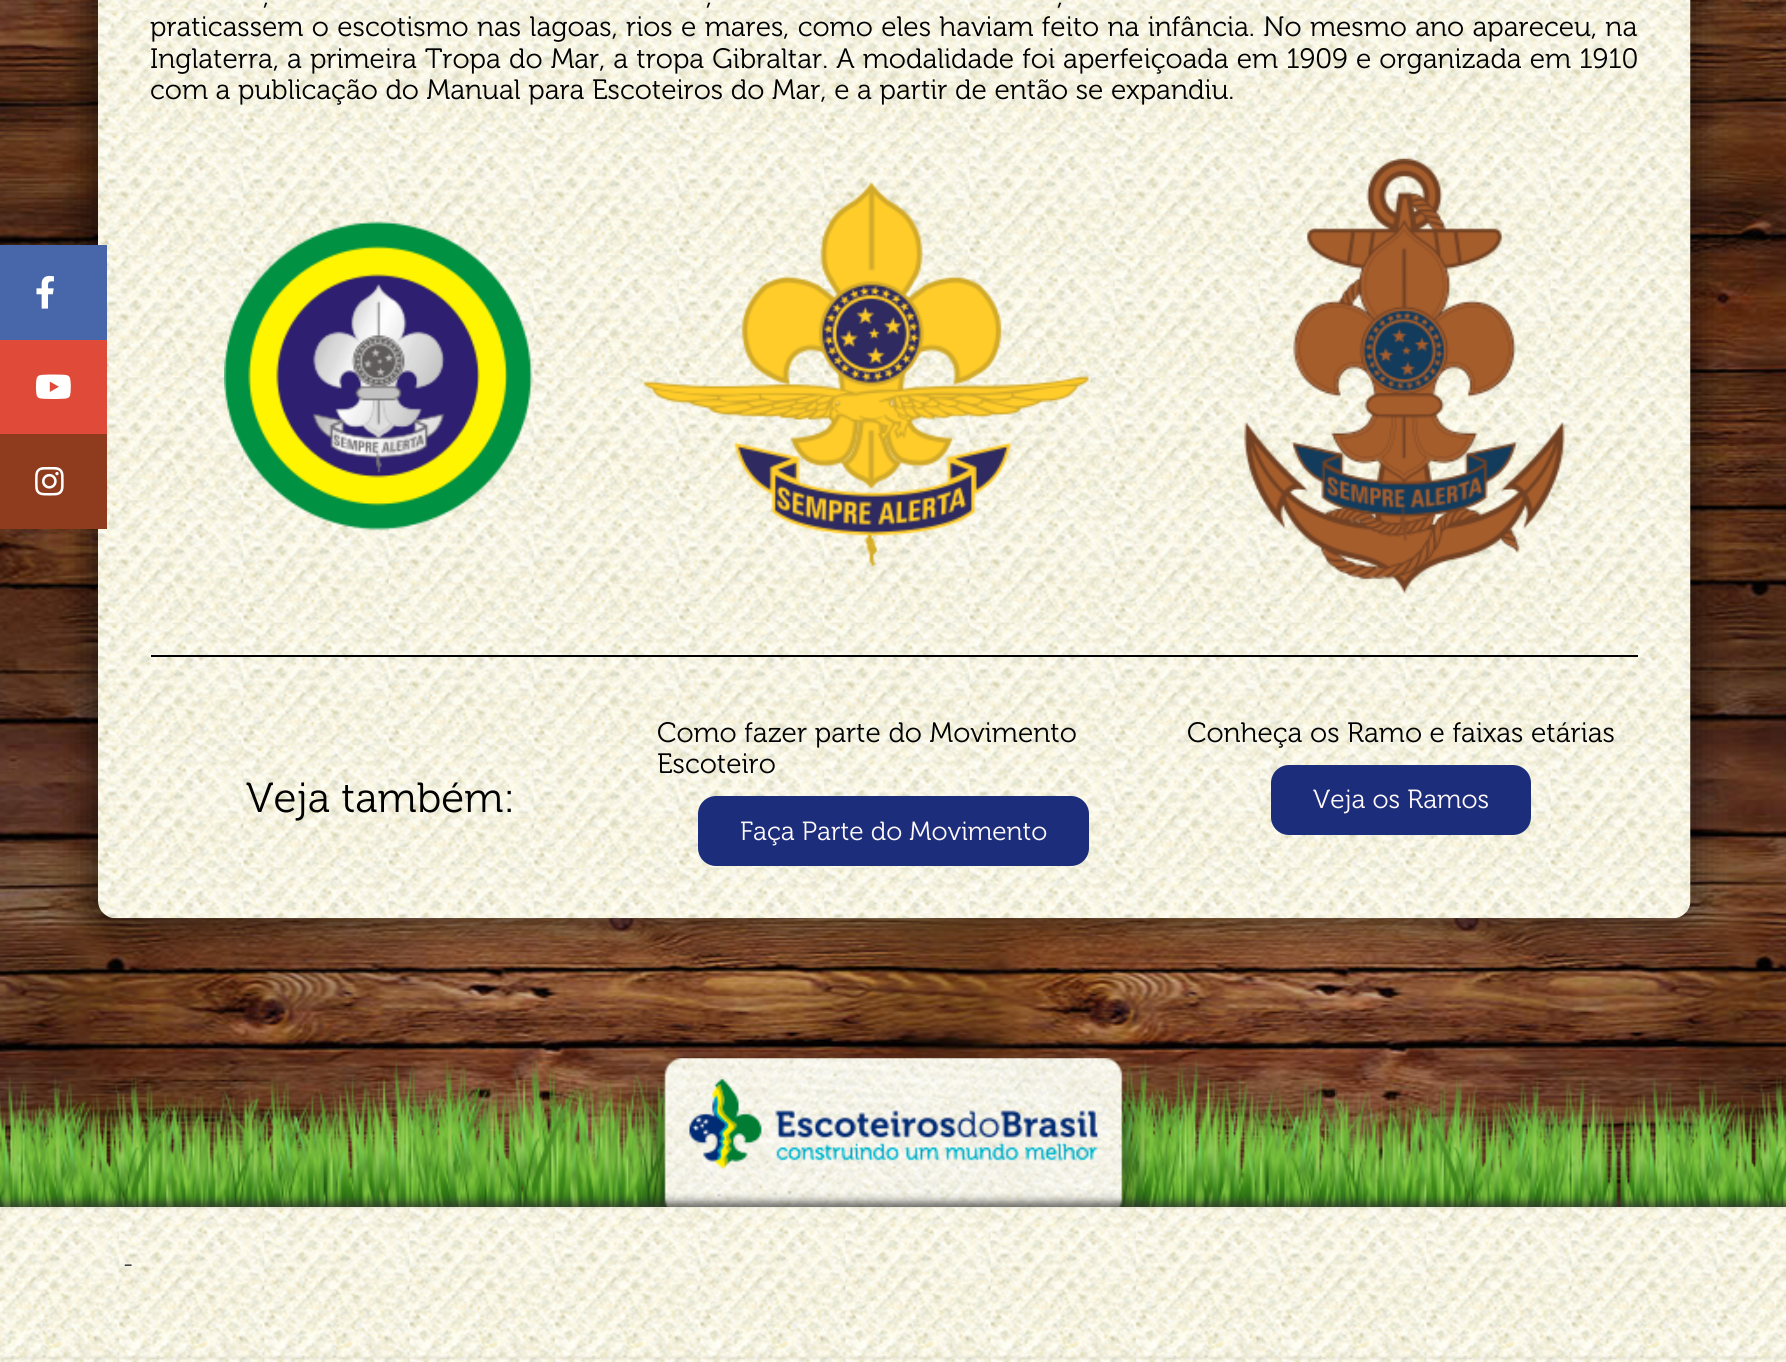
#include <cairo.h>
#include <math.h>
#include <stddef.h>


static void set_color(cairo_t *cr, unsigned color) {
    cairo_set_source_rgb(cr, (color >> 16) / 255.0, (color >> 8 & 255) / 255.0, (color & 255) / 255.0);
}

static void draw_text(cairo_t *cr, double x, double y, const char *s, const char *family, double size, int italic, int bold, unsigned color) {
    cairo_select_font_face(cr, family, italic ? CAIRO_FONT_SLANT_ITALIC : CAIRO_FONT_SLANT_NORMAL,
        bold ? CAIRO_FONT_WEIGHT_BOLD : CAIRO_FONT_WEIGHT_NORMAL);
    cairo_set_font_size(cr, size);
    set_color(cr, color);
    cairo_move_to(cr, x, y);
    cairo_show_text(cr, s);
}

static void draw_spaced(cairo_t *cr, double x, double y, const char *s, double letter, double word) {
    cairo_move_to(cr, x, y);
    while (*s) {
        char ch[5] = {0};
        int n = 0;
        do ch[n++] = *s++; while ((*s & 0xC0) == 0x80);
        cairo_show_text(cr, ch);
        cairo_rel_move_to(cr, letter + word * (*ch == ' '), 0);
    }
}

static void fill_rect(cairo_t *cr, double x, double y, double w, double h, unsigned color) {
    set_color(cr, color);
    cairo_rectangle(cr, x, y, w, h);
    cairo_fill(cr);
}

static void rounded_rect(cairo_t *cr, double x, double y, double w, double h, double r) {
    cairo_new_sub_path(cr);
    cairo_arc(cr, x + w - r, y + h - r, r, 0, M_PI / 2);
    cairo_arc(cr, x + r, y + h - r, r, M_PI / 2, M_PI);
    cairo_arc(cr, x + r, y + r, r, M_PI, 1.5 * M_PI);
    cairo_arc(cr, x + w - r, y + r, r, 1.5 * M_PI, 2 * M_PI);
    cairo_close_path(cr);
}

static void draw_shadow(cairo_t *cr, double x, double y, double w, double h, double r, double blur, double alpha) {
    cairo_push_group_with_content(cr, CAIRO_CONTENT_ALPHA);
    cairo_set_operator(cr, CAIRO_OPERATOR_SOURCE);
    for (int i = 15; i >= -15 && fmin(w, h) + blur * i / 3 > 0; i -= 2) {
        double e = blur * i / 6;
        cairo_set_source_rgba(cr, 0, 0, 0, alpha * erfc((i - 1) / 8.5) / 2);
        rounded_rect(cr, x - e, y - e, w + 2 * e, h + 2 * e, fmax(0, fmin(r + e + blur * .6, fmin(w, h) / 2 + e)));
        cairo_fill(cr);
    }
    cairo_pattern_t *soft = cairo_pop_group(cr);
    cairo_mask(cr, soft);
    cairo_pattern_destroy(soft);
}

static void draw_image(cairo_t *cr, const char *path, double x, double y, double w, double h) {
    cairo_surface_t *image = cairo_image_surface_create_from_png(path);
    cairo_save(cr);
    cairo_set_source_surface(cr, image, x, y);
    cairo_rectangle(cr, x, y, w, h);
    cairo_fill(cr);
    cairo_restore(cr);
    cairo_surface_destroy(image);
}

int main(void) {
    cairo_surface_t *surface = cairo_image_surface_create(CAIRO_FORMAT_RGB24, 1786, 1362);
    cairo_t *cr = cairo_create(surface);
    cairo_font_options_t *options = cairo_font_options_create();
    cairo_font_options_set_hint_metrics(options, CAIRO_HINT_METRICS_OFF);
    cairo_font_options_set_hint_style(options, CAIRO_HINT_STYLE_NONE);
    cairo_set_font_options(cr, options);
    cairo_set_miter_limit(cr, 4);
    set_color(cr, 0xFFFFFF);
    cairo_paint(cr);
    draw_image(cr, "assets/img1.png", 0, 0, 1786, 1360);
    set_color(cr, 0x010002);
    draw_shadow(cr, 89, -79, 1610, 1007, 26, 17.5, 0.55);
    draw_image(cr, "assets/img5.png", 98, 0, 1593, 919);
    fill_rect(cr, 0, 245, 107, 95, 0x4867AA);
    draw_image(cr, "assets/img2.png", 36, 275, 18, 34);
    fill_rect(cr, 0, 340, 107, 94, 0xDF4B38);
    draw_image(cr, "assets/img3.png", 35, 374, 36, 25);
    fill_rect(cr, 0, 434, 107, 95, 0x8F3C1E);
    draw_image(cr, "assets/img4.png", 35, 466, 29, 30);
    cairo_select_font_face(cr, "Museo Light", CAIRO_FONT_SLANT_NORMAL, CAIRO_FONT_WEIGHT_NORMAL);
    cairo_set_font_size(cr, 28);
    set_color(cr, 0x000000);
    draw_spaced(cr, 263, 5, ",", 0, 3);
    draw_spaced(cr, 706, 5, ",", 0, 3);
    draw_spaced(cr, 1057, 5, ",", 0, 3);
    draw_spaced(cr, 150, 36, "praticassem o escotismo nas lagoas, rios e mares, como eles haviam feito na infância. No mesmo ano apareceu, na", 0, 0.75);
    draw_spaced(cr, 150, 68, "Inglaterra, a primeira Tropa do Mar, a tropa Gibraltar. A modalidade foi aperfeiçoada em 1909 e organizada em 1910", 0, 0.5);
    draw_text(cr, 150, 99, "com a publicação do Manual para Escoteiros do Mar, e a partir de então se expandiu.", "Museo Light", 28, 0, 0, 0x000000);
    draw_image(cr, "assets/img6.png", 224, 158, 1341, 435);
    fill_rect(cr, 151, 655, 1487, 2, 0x000000);
    draw_text(cr, 246, 812, "Veja também:", "Museo Light", 42, 0, 0, 0x000000);
    draw_text(cr, 657, 742, "Como fazer parte do Movimento", "Museo Light", 28, 0, 0, 0x000000);
    draw_text(cr, 657, 773, "Escoteiro", "Museo Light", 28, 0, 0, 0x000000);
    set_color(cr, 0x1C2E7B);
    rounded_rect(cr, 698, 796, 391, 70, 18);
    cairo_fill(cr);
    draw_text(cr, 740, 840, "Faça Parte do Movimento", "Museo Light", 26.25, 0, 0, 0xFFF9F9);
    draw_text(cr, 1187, 742, "Conheça os Ramo e faixas etárias", "Museo Light", 28, 0, 0, 0x000000);
    set_color(cr, 0x1C2E7B);
    rounded_rect(cr, 1271, 765, 260, 70, 18);
    cairo_fill(cr);
    draw_text(cr, 1313, 808, "Veja os Ramos", "Museo Light", 26.25, 0, 0, 0xFFF9F9);
    draw_image(cr, "assets/img7.png", 0, 1058, 1786, 149);
    draw_image(cr, "assets/img8.png", 640, 1058, 507, 152);
    cairo_save(cr);
    cairo_rectangle(cr, 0, 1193, 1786, 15);
    cairo_clip(cr);
    set_color(cr, 0x323232);
    draw_shadow(cr, -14, 1202, 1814, 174, 0, 4.5, 0.75);
    cairo_restore(cr);
    draw_image(cr, "assets/img9.png", 0, 1207, 1786, 155);
    draw_text(cr, 123, 1272, "-", "Museo Light", 24, 0, 0, 0x333333);
    cairo_surface_write_to_png(surface, "output.png");
    cairo_font_options_destroy(options);
    cairo_destroy(cr);
    cairo_surface_destroy(surface);
    return 0;
}
